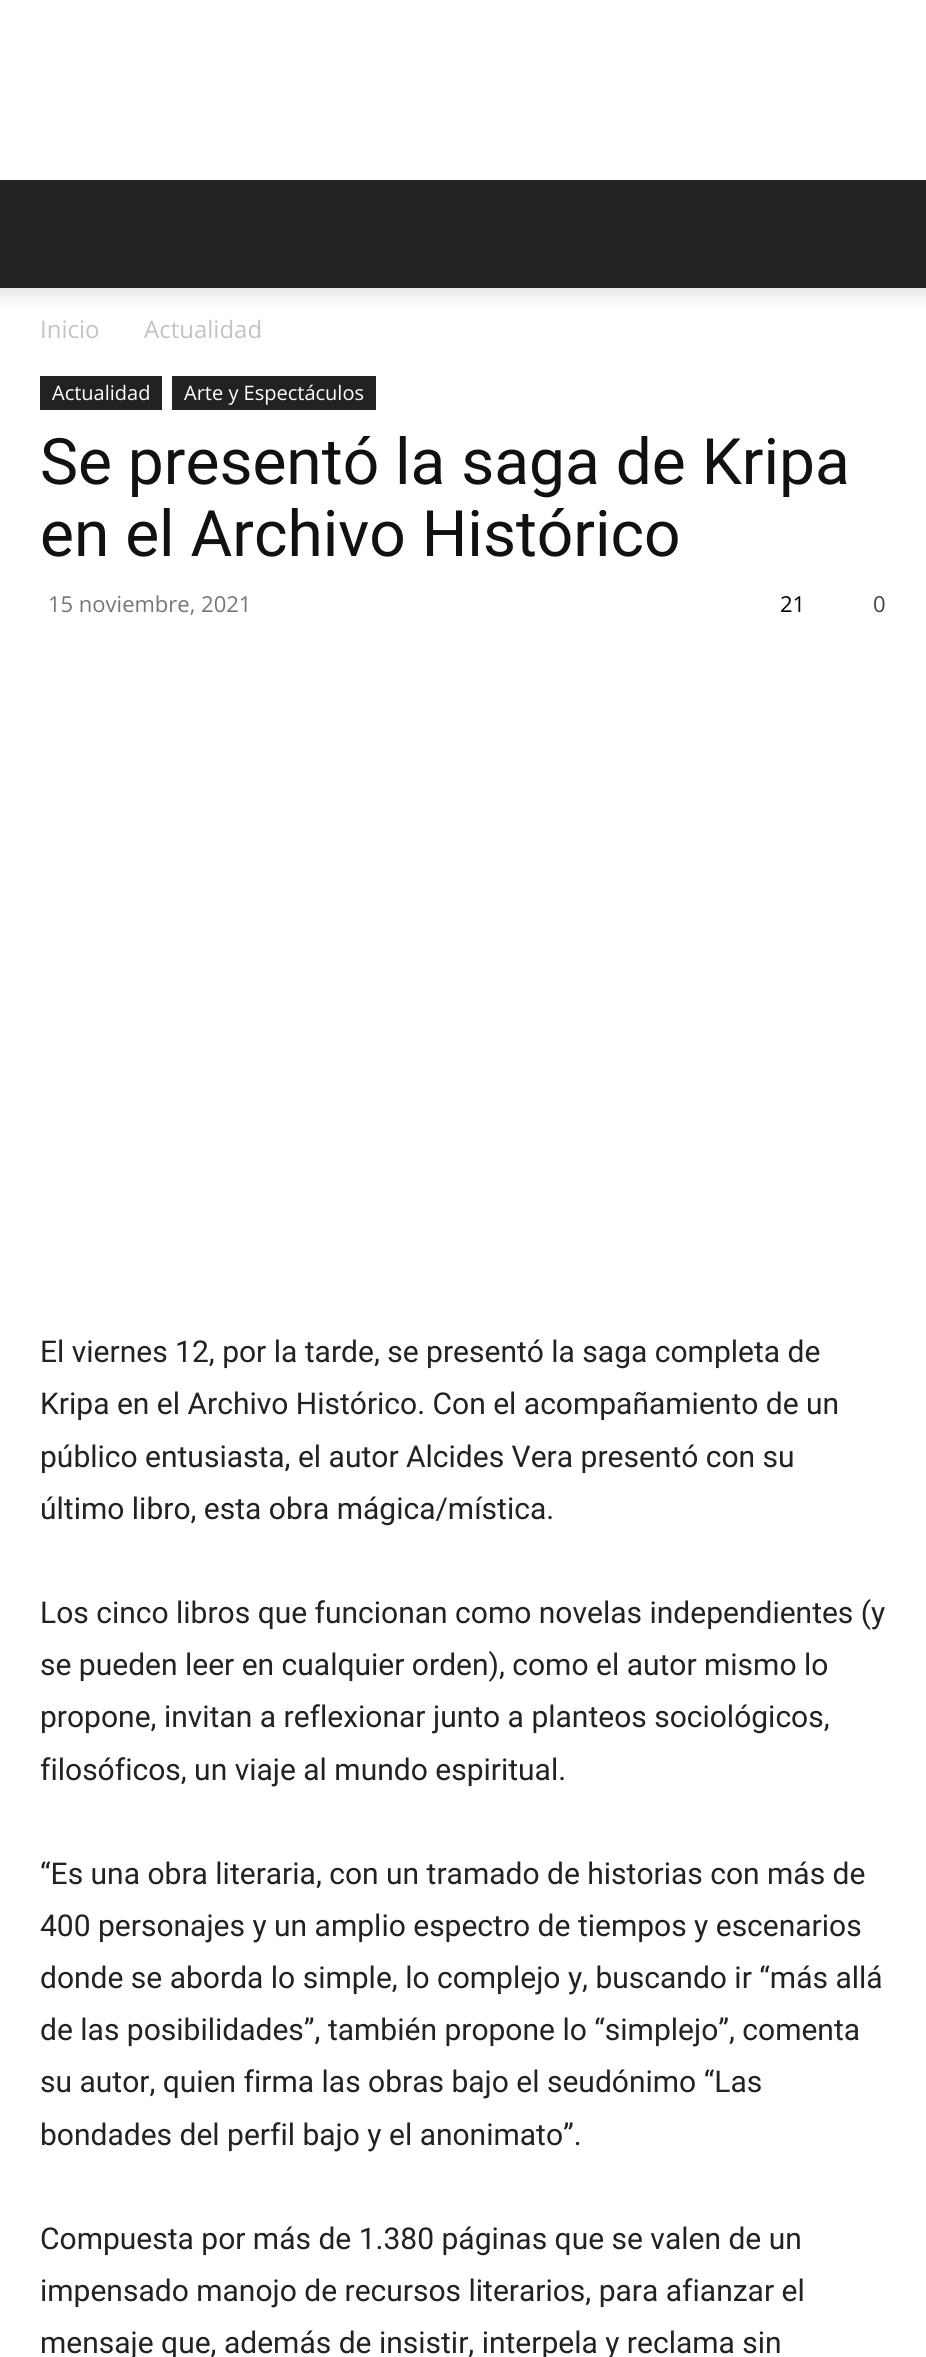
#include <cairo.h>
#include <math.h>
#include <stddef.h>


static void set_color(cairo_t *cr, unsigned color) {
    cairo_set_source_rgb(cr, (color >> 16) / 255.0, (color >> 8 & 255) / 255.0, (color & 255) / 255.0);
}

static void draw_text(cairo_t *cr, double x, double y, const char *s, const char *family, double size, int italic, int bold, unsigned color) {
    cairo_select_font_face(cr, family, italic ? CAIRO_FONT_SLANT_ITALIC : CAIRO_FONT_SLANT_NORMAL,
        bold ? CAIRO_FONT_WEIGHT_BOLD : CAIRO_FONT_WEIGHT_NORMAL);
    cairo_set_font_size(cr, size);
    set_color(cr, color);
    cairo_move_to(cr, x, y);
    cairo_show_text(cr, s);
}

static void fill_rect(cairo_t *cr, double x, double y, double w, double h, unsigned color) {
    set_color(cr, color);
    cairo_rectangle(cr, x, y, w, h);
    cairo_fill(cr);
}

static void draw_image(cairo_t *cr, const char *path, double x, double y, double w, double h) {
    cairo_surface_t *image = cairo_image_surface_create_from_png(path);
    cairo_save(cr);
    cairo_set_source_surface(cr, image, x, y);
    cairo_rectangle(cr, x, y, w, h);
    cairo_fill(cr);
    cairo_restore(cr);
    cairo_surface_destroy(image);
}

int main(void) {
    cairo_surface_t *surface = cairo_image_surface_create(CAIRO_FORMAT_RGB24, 926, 2357);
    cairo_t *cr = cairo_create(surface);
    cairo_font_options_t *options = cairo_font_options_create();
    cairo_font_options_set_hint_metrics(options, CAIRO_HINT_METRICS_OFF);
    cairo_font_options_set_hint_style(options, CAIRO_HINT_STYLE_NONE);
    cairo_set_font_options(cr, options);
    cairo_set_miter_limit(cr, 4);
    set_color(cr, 0xFFFFFF);
    cairo_paint(cr);
    fill_rect(cr, 0, 180, 926, 108, 0x222222);
    draw_image(cr, "assets/img1.png", 0, 288, 926, 17);
    draw_text(cr, 40, 338, "Inicio", "Open Sans", 24, 0, 0, 0xC3C3C3);
    draw_text(cr, 144, 338, "Actualidad", "Open Sans", 24, 0, 0, 0xC3C3C3);
    fill_rect(cr, 40, 376, 122, 34, 0x222222);
    draw_text(cr, 52, 400, "Actualidad", "Open Sans", 20, 0, 0, 0xFFFFFF);
    fill_rect(cr, 172, 376, 204, 34, 0x222222);
    draw_text(cr, 184, 400, "Arte y Espectáculos", "Open Sans", 20, 0, 0, 0xFFFFFF);
    draw_text(cr, 40, 484, "Se presentó la saga de Kripa", "Roboto", 64, 0, 0, 0x111111);
    draw_text(cr, 40, 556, "en el Archivo Histórico", "Roboto", 64, 0, 0, 0x111111);
    draw_text(cr, 48, 612, "15 noviembre, 2021", "Open Sans", 22, 0, 0, 0x767676);
    draw_text(cr, 780, 612, "21", "Open Sans", 22, 0, 0, 0x000000);
    draw_text(cr, 873, 612, "0", "Open Sans", 22, 0, 0, 0x444444);
    draw_text(cr, 40, 1362, "El viernes 12, por la tarde, se presentó la saga completa de", "Roboto", 30, 0, 0, 0x222222);
    draw_text(cr, 40, 1414, "Kripa en el Archivo Histórico. Con el acompañamiento de un", "Roboto", 30, 0, 0, 0x222222);
    draw_text(cr, 40, 1467, "público entusiasta, el autor Alcides Vera presentó con su", "Roboto", 30, 0, 0, 0x222222);
    draw_text(cr, 40, 1519, "último libro, esta obra mágica/mística.", "Roboto", 30, 0, 0, 0x222222);
    draw_text(cr, 40, 1623, "Los cinco libros que funcionan como novelas independientes (y", "Roboto", 30, 0, 0, 0x222222);
    draw_text(cr, 40, 1675, "se pueden leer en cualquier orden), como el autor mismo lo", "Roboto", 30, 0, 0, 0x222222);
    draw_text(cr, 40, 1727, "propone, invitan a reflexionar junto a planteos sociológicos,", "Roboto", 30, 0, 0, 0x222222);
    draw_text(cr, 40, 1780, "filosóficos, un viaje al mundo espiritual.", "Roboto", 30, 0, 0, 0x222222);
    draw_text(cr, 40, 1884, "“Es una obra literaria, con un tramado de historias con más de", "Roboto", 30, 0, 0, 0x222222);
    draw_text(cr, 40, 1936, "400 personajes y un amplio espectro de tiempos y escenarios", "Roboto", 30, 0, 0, 0x222222);
    draw_text(cr, 40, 1988, "donde se aborda lo simple, lo complejo y, buscando ir “más allá", "Roboto", 30, 0, 0, 0x222222);
    draw_text(cr, 40, 2040, "de las posibilidades”, también propone lo “simplejo”, comenta", "Roboto", 30, 0, 0, 0x222222);
    draw_text(cr, 40, 2092, "su autor, quien firma las obras bajo el seudónimo “Las", "Roboto", 30, 0, 0, 0x222222);
    draw_text(cr, 40, 2145, "bondades del perfil bajo y el anonimato”.", "Roboto", 30, 0, 0, 0x222222);
    draw_text(cr, 40, 2249, "Compuesta por más de 1.380 páginas que se valen de un", "Roboto", 30, 0, 0, 0x222222);
    draw_text(cr, 40, 2301, "impensado manojo de recursos literarios, para afianzar el", "Roboto", 30, 0, 0, 0x222222);
    draw_text(cr, 40, 2353, "mensaje que, además de insistir, interpela y reclama sin", "Roboto", 30, 0, 0, 0x222222);
    cairo_surface_write_to_png(surface, "output.png");
    cairo_font_options_destroy(options);
    cairo_destroy(cr);
    cairo_surface_destroy(surface);
    return 0;
}
